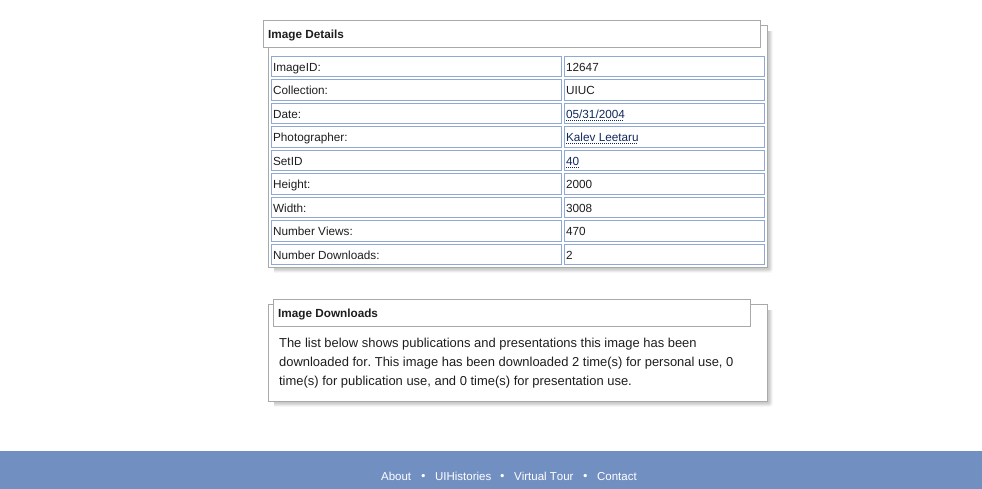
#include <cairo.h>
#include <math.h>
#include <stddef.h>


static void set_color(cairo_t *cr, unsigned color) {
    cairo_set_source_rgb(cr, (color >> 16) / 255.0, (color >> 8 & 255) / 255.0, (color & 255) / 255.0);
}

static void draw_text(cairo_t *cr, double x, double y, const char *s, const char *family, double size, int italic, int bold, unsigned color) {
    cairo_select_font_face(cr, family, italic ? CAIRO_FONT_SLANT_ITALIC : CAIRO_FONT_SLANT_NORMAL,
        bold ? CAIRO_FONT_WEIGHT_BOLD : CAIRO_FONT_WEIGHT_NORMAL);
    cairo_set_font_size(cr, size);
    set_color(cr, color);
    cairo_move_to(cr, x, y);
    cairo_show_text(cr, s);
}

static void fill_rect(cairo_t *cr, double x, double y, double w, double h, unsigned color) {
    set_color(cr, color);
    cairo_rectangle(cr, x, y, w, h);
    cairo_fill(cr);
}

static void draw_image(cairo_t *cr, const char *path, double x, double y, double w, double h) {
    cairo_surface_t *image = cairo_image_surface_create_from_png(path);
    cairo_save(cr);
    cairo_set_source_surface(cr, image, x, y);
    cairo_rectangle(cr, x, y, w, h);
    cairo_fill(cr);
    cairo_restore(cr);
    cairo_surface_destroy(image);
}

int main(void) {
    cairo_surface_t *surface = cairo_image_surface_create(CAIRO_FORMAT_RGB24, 982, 489);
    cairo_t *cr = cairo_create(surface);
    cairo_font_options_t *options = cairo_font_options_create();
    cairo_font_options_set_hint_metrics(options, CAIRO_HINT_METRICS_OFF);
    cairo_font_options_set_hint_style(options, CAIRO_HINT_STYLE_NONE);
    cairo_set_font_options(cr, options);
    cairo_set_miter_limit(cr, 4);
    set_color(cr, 0xFFFFFF);
    cairo_paint(cr);
    draw_image(cr, "assets/img1.png", 274, 31, 499, 242);
    cairo_rectangle(cr, 268.5, 25.5, 499, 242);
    set_color(cr, 0xA9A9A9);
    cairo_set_line_width(cr, 1);
    cairo_stroke(cr);
    fill_rect(cr, 268, 25, 492, 22, 0xFFFFFF);
    cairo_rectangle(cr, 263.5, 20.5, 497, 27);
    set_color(cr, 0xA9A9A9);
    cairo_stroke(cr);
    draw_text(cr, 268, 38, "Image Details", "Liberation Sans", 11.75, 0, 1, 0x1D1D1D);
    cairo_rectangle(cr, 271.5, 56.5, 290, 20);
    set_color(cr, 0x8FA8D4);
    cairo_stroke(cr);
    draw_text(cr, 273, 71, "ImageID:", "Liberation Sans", 11.75, 0, 0, 0x1D1D1D);
    cairo_rectangle(cr, 564.5, 56.5, 200, 20);
    set_color(cr, 0x8FA8D4);
    cairo_stroke(cr);
    draw_text(cr, 566, 71, "12647", "Liberation Sans", 11.75, 0, 0, 0x1D1D1D);
    cairo_rectangle(cr, 271.5, 79.5, 290, 21);
    set_color(cr, 0x8FA8D4);
    cairo_stroke(cr);
    draw_text(cr, 273, 94, "Collection:", "Liberation Sans", 11.75, 0, 0, 0x1D1D1D);
    cairo_rectangle(cr, 564.5, 79.5, 200, 21);
    set_color(cr, 0x8FA8D4);
    cairo_stroke(cr);
    draw_text(cr, 566, 94, "UIUC", "Liberation Sans", 11.75, 0, 0, 0x1D1D1D);
    cairo_rectangle(cr, 271.5, 103.5, 290, 20);
    set_color(cr, 0x8FA8D4);
    cairo_stroke(cr);
    draw_text(cr, 273, 118, "Date:", "Liberation Sans", 11.75, 0, 0, 0x1D1D1D);
    cairo_rectangle(cr, 564.5, 103.5, 200, 20);
    set_color(cr, 0x8FA8D4);
    cairo_stroke(cr);
    draw_text(cr, 566, 118, "05/31/2004", "Liberation Sans", 11.75, 0, 0, 0x0F285C);
    cairo_new_path(cr);
    cairo_move_to(cr, 566, 120.5);
    cairo_line_to(cr, 624, 120.5);
    cairo_set_dash(cr, (double[]){1, 1}, 2, 0);
    cairo_stroke(cr);
    cairo_rectangle(cr, 271.5, 126.5, 290, 21);
    set_color(cr, 0x8FA8D4);
    cairo_set_dash(cr, NULL, 0, 0);
    cairo_stroke(cr);
    draw_text(cr, 273, 141, "Photographer:", "Liberation Sans", 11.75, 0, 0, 0x1D1D1D);
    cairo_rectangle(cr, 564.5, 126.5, 200, 21);
    set_color(cr, 0x8FA8D4);
    cairo_stroke(cr);
    draw_text(cr, 566, 141, "Kalev Leetaru", "Liberation Sans", 11.75, 0, 0, 0x0F285C);
    cairo_new_path(cr);
    cairo_move_to(cr, 566, 143.5);
    cairo_line_to(cr, 638, 143.5);
    cairo_set_dash(cr, (double[]){1, 1}, 2, 0);
    cairo_stroke(cr);
    cairo_rectangle(cr, 271.5, 150.5, 290, 20);
    set_color(cr, 0x8FA8D4);
    cairo_set_dash(cr, NULL, 0, 0);
    cairo_stroke(cr);
    draw_text(cr, 273, 165, "SetID", "Liberation Sans", 11.75, 0, 0, 0x1D1D1D);
    cairo_rectangle(cr, 564.5, 150.5, 200, 20);
    set_color(cr, 0x8FA8D4);
    cairo_stroke(cr);
    draw_text(cr, 566, 165, "40", "Liberation Sans", 11.75, 0, 0, 0x0F285C);
    cairo_new_path(cr);
    cairo_move_to(cr, 566, 167.5);
    cairo_line_to(cr, 579, 167.5);
    cairo_set_dash(cr, (double[]){1, 1}, 2, 0);
    cairo_stroke(cr);
    cairo_rectangle(cr, 271.5, 173.5, 290, 21);
    set_color(cr, 0x8FA8D4);
    cairo_set_dash(cr, NULL, 0, 0);
    cairo_stroke(cr);
    draw_text(cr, 273, 188, "Height:", "Liberation Sans", 11.75, 0, 0, 0x1D1D1D);
    cairo_rectangle(cr, 564.5, 173.5, 200, 21);
    set_color(cr, 0x8FA8D4);
    cairo_stroke(cr);
    draw_text(cr, 566, 188, "2000", "Liberation Sans", 11.75, 0, 0, 0x1D1D1D);
    cairo_rectangle(cr, 271.5, 197.5, 290, 20);
    set_color(cr, 0x8FA8D4);
    cairo_stroke(cr);
    draw_text(cr, 273, 212, "Width:", "Liberation Sans", 11.75, 0, 0, 0x1D1D1D);
    cairo_rectangle(cr, 564.5, 197.5, 200, 20);
    set_color(cr, 0x8FA8D4);
    cairo_stroke(cr);
    draw_text(cr, 566, 212, "3008", "Liberation Sans", 11.75, 0, 0, 0x1D1D1D);
    cairo_rectangle(cr, 271.5, 220.5, 290, 21);
    set_color(cr, 0x8FA8D4);
    cairo_stroke(cr);
    draw_text(cr, 273, 235, "Number Views:", "Liberation Sans", 11.75, 0, 0, 0x1D1D1D);
    cairo_rectangle(cr, 564.5, 220.5, 200, 21);
    set_color(cr, 0x8FA8D4);
    cairo_stroke(cr);
    draw_text(cr, 566, 235, "470", "Liberation Sans", 11.75, 0, 0, 0x1D1D1D);
    cairo_rectangle(cr, 271.5, 244.5, 290, 20);
    set_color(cr, 0x8FA8D4);
    cairo_stroke(cr);
    draw_text(cr, 273, 259, "Number Downloads:", "Liberation Sans", 11.75, 0, 0, 0x1D1D1D);
    cairo_rectangle(cr, 564.5, 244.5, 200, 20);
    set_color(cr, 0x8FA8D4);
    cairo_stroke(cr);
    draw_text(cr, 566, 259, "2", "Liberation Sans", 11.75, 0, 0, 0x1D1D1D);
    draw_image(cr, "assets/img2.png", 274, 310, 499, 97);
    cairo_rectangle(cr, 268.5, 304.5, 499, 97);
    set_color(cr, 0xA9A9A9);
    cairo_stroke(cr);
    fill_rect(cr, 274, 304, 476, 1, 0xFFFFFF);
    cairo_rectangle(cr, 273.5, 299.5, 477, 27);
    set_color(cr, 0xA9A9A9);
    cairo_stroke(cr);
    draw_text(cr, 278, 317, "Image Downloads", "Liberation Sans", 11.75, 0, 1, 0x1D1D1D);
    draw_text(cr, 279, 347, "The list below shows publications and presentations this image has been", "Liberation Sans", 12.95, 0, 0, 0x1D1D1D);
    draw_text(cr, 279, 366, "downloaded for. This image has been downloaded 2 time(s) for personal use, 0", "Liberation Sans", 12.95, 0, 0, 0x1D1D1D);
    draw_text(cr, 279, 385, "time(s) for publication use, and 0 time(s) for presentation use.", "Liberation Sans", 12.95, 0, 0, 0x1D1D1D);
    fill_rect(cr, 0, 451, 982, 38, 0x728FC2);
    draw_text(cr, 381, 480, "About", "Liberation Sans", 11.5, 0, 0, 0xFFFFFF);
    draw_image(cr, "assets/img3.png", 421, 474, 4, 4);
    draw_text(cr, 435, 480, "UIHistories", "Liberation Sans", 11.5, 0, 0, 0xFFFFFF);
    draw_image(cr, "assets/img3.png", 500, 474, 4, 4);
    draw_text(cr, 514, 480, "Virtual Tour", "Liberation Sans", 11.5, 0, 0, 0xFFFFFF);
    draw_image(cr, "assets/img3.png", 583, 474, 4, 4);
    draw_text(cr, 597, 480, "Contact", "Liberation Sans", 11.5, 0, 0, 0xFFFFFF);
    cairo_surface_write_to_png(surface, "output.png");
    cairo_font_options_destroy(options);
    cairo_destroy(cr);
    cairo_surface_destroy(surface);
    return 0;
}
